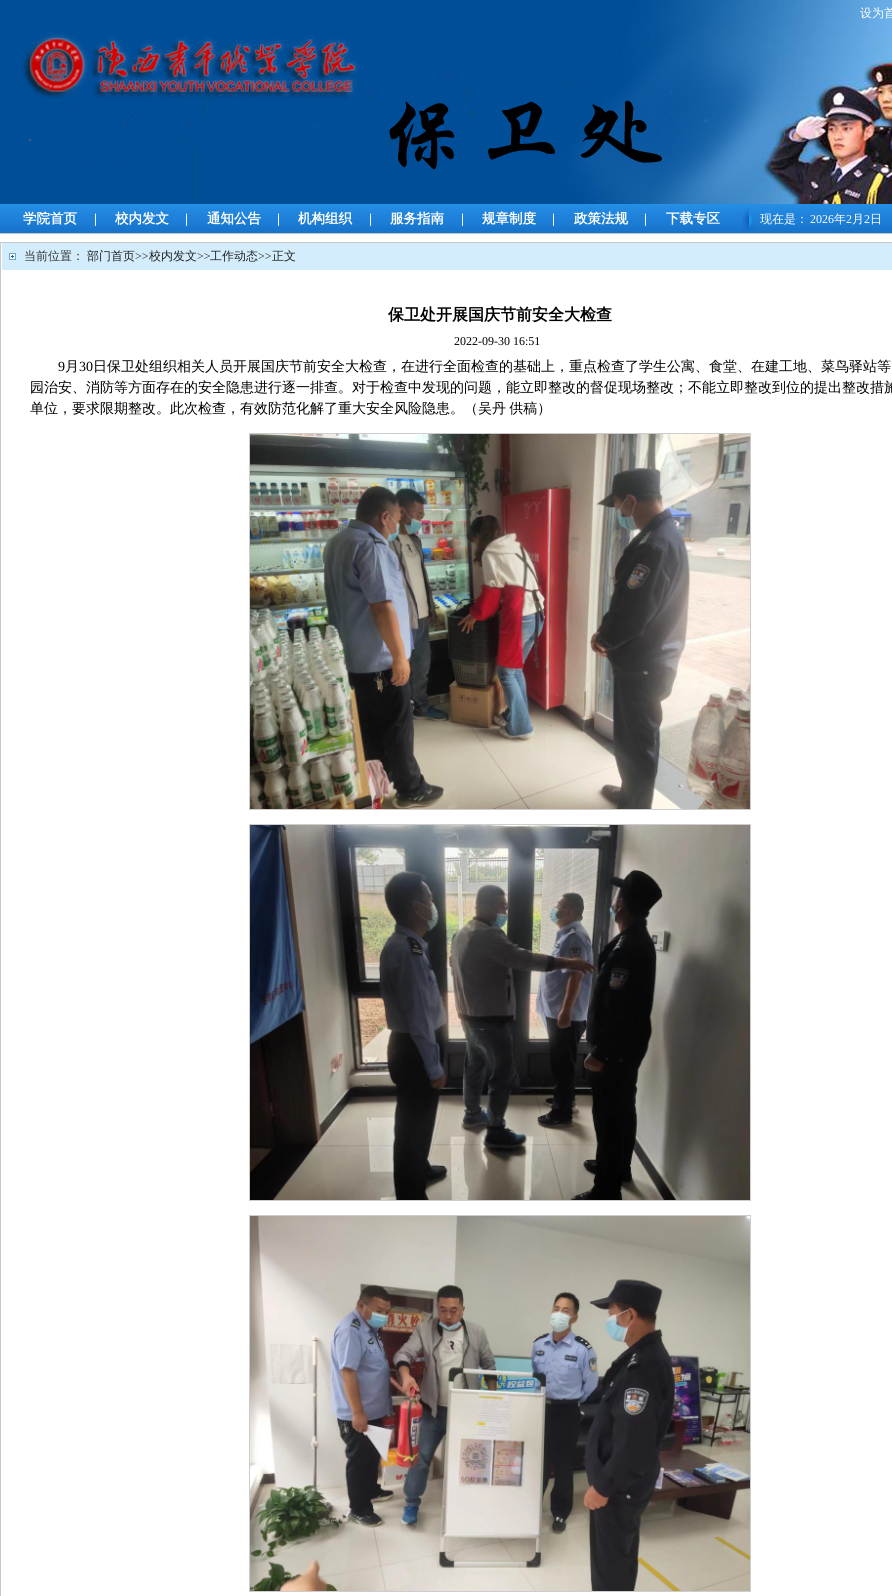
#include <cairo.h>
#include <math.h>
#include <stddef.h>


static void set_color(cairo_t *cr, unsigned color) {
    cairo_set_source_rgb(cr, (color >> 16) / 255.0, (color >> 8 & 255) / 255.0, (color & 255) / 255.0);
}

static void draw_text(cairo_t *cr, double x, double y, const char *s, const char *family, double size, int italic, int bold, unsigned color) {
    cairo_select_font_face(cr, family, italic ? CAIRO_FONT_SLANT_ITALIC : CAIRO_FONT_SLANT_NORMAL,
        bold ? CAIRO_FONT_WEIGHT_BOLD : CAIRO_FONT_WEIGHT_NORMAL);
    cairo_set_font_size(cr, size);
    set_color(cr, color);
    cairo_move_to(cr, x, y);
    cairo_show_text(cr, s);
}

static void draw_spaced(cairo_t *cr, double x, double y, const char *s, double letter, double word) {
    cairo_move_to(cr, x, y);
    while (*s) {
        char ch[5] = {0};
        int n = 0;
        do ch[n++] = *s++; while ((*s & 0xC0) == 0x80);
        cairo_show_text(cr, ch);
        cairo_rel_move_to(cr, letter + word * (*ch == ' '), 0);
    }
}

static void fill_rect(cairo_t *cr, double x, double y, double w, double h, unsigned color) {
    set_color(cr, color);
    cairo_rectangle(cr, x, y, w, h);
    cairo_fill(cr);
}

static void draw_image(cairo_t *cr, const char *path, double x, double y, double w, double h) {
    cairo_surface_t *image = cairo_image_surface_create_from_png(path);
    cairo_save(cr);
    cairo_set_source_surface(cr, image, x, y);
    cairo_rectangle(cr, x, y, w, h);
    cairo_fill(cr);
    cairo_restore(cr);
    cairo_surface_destroy(image);
}

int main(void) {
    cairo_surface_t *surface = cairo_image_surface_create(CAIRO_FORMAT_RGB24, 892, 1596);
    cairo_t *cr = cairo_create(surface);
    cairo_font_options_t *options = cairo_font_options_create();
    cairo_font_options_set_hint_metrics(options, CAIRO_HINT_METRICS_OFF);
    cairo_font_options_set_hint_style(options, CAIRO_HINT_STYLE_NONE);
    cairo_set_font_options(cr, options);
    cairo_set_miter_limit(cr, 4);
    set_color(cr, 0xFFFFFF);
    cairo_paint(cr);
    draw_image(cr, "assets/img1.png", 0, 0, 892, 204);
    draw_text(cr, 860, 17, "设为首", "WenQuanYi Zen Hei Medium", 12, 0, 0, 0xFFFFFF);
    draw_image(cr, "assets/img2.png", 0, 204, 742, 30);
    draw_text(cr, 23, 223, "学院首页", "WenQuanYi Zen Hei", 13.5, 0, 1, 0xFFFFFF);
    draw_text(cr, 94, 223, "|", "Liberation Serif", 13.5, 0, 1, 0xFFFFFF);
    draw_text(cr, 115, 223, "校内发文", "WenQuanYi Zen Hei", 13.5, 0, 1, 0xFFFFFF);
    draw_text(cr, 185, 223, "|", "Liberation Serif", 13.5, 0, 1, 0xFFFFFF);
    draw_text(cr, 207, 223, "通知公告", "WenQuanYi Zen Hei", 13.5, 0, 1, 0xFFFFFF);
    draw_text(cr, 277, 223, "|", "Liberation Serif", 13.5, 0, 1, 0xFFFFFF);
    draw_text(cr, 298, 223, "机构组织", "WenQuanYi Zen Hei", 13.5, 0, 1, 0xFFFFFF);
    draw_text(cr, 369, 223, "|", "Liberation Serif", 13.5, 0, 1, 0xFFFFFF);
    draw_text(cr, 390, 223, "服务指南", "WenQuanYi Zen Hei", 13.5, 0, 1, 0xFFFFFF);
    draw_text(cr, 461, 223, "|", "Liberation Serif", 13.5, 0, 1, 0xFFFFFF);
    draw_text(cr, 482, 223, "规章制度", "WenQuanYi Zen Hei", 13.5, 0, 1, 0xFFFFFF);
    draw_text(cr, 552, 223, "|", "Liberation Serif", 13.5, 0, 1, 0xFFFFFF);
    draw_text(cr, 574, 223, "政策法规", "WenQuanYi Zen Hei", 13.5, 0, 1, 0xFFFFFF);
    draw_text(cr, 644, 223, "|", "Liberation Serif", 13.5, 0, 1, 0xFFFFFF);
    draw_text(cr, 666, 223, "下载专区", "WenQuanYi Zen Hei", 13.5, 0, 1, 0xFFFFFF);
    draw_image(cr, "assets/img3.png", 742, 204, 16, 30);
    draw_image(cr, "assets/img4.png", 742, 208, 12, 23);
    draw_image(cr, "assets/img5.png", 758, 204, 52, 30);
    draw_text(cr, 760, 223, "现在是：", "WenQuanYi Zen Hei Medium", 12, 0, 0, 0xFFFFFF);
    draw_image(cr, "assets/img6.png", 810, 204, 82, 30);
    draw_text(cr, 810, 223, "2026", "Liberation Serif", 12, 0, 0, 0xFFFFFF);
    draw_text(cr, 834, 223, "年", "WenQuanYi Zen Hei Medium", 12, 0, 0, 0xFFFFFF);
    draw_text(cr, 846, 223, "2", "Liberation Serif", 12, 0, 0, 0xFFFFFF);
    draw_text(cr, 852, 223, "月", "WenQuanYi Zen Hei Medium", 12, 0, 0, 0xFFFFFF);
    draw_text(cr, 864, 223, "2", "Liberation Serif", 12, 0, 0, 0xFFFFFF);
    draw_text(cr, 870, 223, "日", "WenQuanYi Zen Hei Medium", 12, 0, 0, 0xFFFFFF);
    cairo_rectangle(cr, 0.5, 242.5, 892, 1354);
    set_color(cr, 0xC9C9C9);
    cairo_set_line_width(cr, 1);
    cairo_stroke(cr);
    fill_rect(cr, 2, 243, 890, 27, 0xD3EDFC);
    draw_image(cr, "assets/img7.png", 9, 253, 7, 7);
    draw_text(cr, 24, 260, "当前位置：", "WenQuanYi Zen Hei Medium", 12, 0, 0, 0x333333);
    draw_text(cr, 87, 260, "部门首页", "WenQuanYi Zen Hei Medium", 12, 0, 0, 0x222222);
    draw_text(cr, 135, 260, ">>", "Liberation Serif", 12, 0, 0, 0x222222);
    draw_text(cr, 149, 260, "校内发文", "WenQuanYi Zen Hei Medium", 12, 0, 0, 0x222222);
    draw_text(cr, 197, 260, ">>", "Liberation Serif", 12, 0, 0, 0x222222);
    draw_text(cr, 210, 260, "工作动态", "WenQuanYi Zen Hei Medium", 12, 0, 0, 0x222222);
    draw_text(cr, 258, 260, ">>", "Liberation Serif", 12, 0, 0, 0x222222);
    draw_text(cr, 272, 260, "正文", "WenQuanYi Zen Hei Medium", 12, 0, 0, 0x222222);
    draw_text(cr, 388, 320, "保卫处开展国庆节前安全大检查", "WenQuanYi Zen Hei", 16, 0, 1, 0x000000);
    draw_text(cr, 454, 345, "2022-09-30 16:51", "Liberation Serif", 12, 0, 0, 0x000000);
    draw_text(cr, 58, 371, "9", "Liberation Serif", 14, 0, 0, 0x000000);
    draw_text(cr, 65, 371, "月", "WenQuanYi Zen Hei Medium", 14, 0, 0, 0x000000);
    draw_text(cr, 79, 371, "30", "Liberation Serif", 14, 0, 0, 0x000000);
    draw_text(cr, 93, 371, "日保卫处组织相关人员开展国庆节前安全大检查，在进行全面检查的基础上，重点检查了学生公寓、食堂、在建工地、菜鸟驿站等", "WenQuanYi Zen Hei Medium", 14, 0, 0, 0x000000);
    draw_text(cr, 30, 392, "园治安、消防等方面存在的安全隐患进行逐一排查。对于检查中发现的问题，能立即整改的督促现场整改；不能立即整改到位的提出整改措施", "WenQuanYi Zen Hei Medium", 14, 0, 0, 0x000000);
    draw_spaced(cr, 30, 413, "单位，要求限期整改。此次检查，有效防范化解了重大安全风险隐患。（吴丹 供稿）", 0, -1);
    cairo_rectangle(cr, 249.5, 433.5, 501, 376);
    set_color(cr, 0xCCCCCC);
    cairo_stroke(cr);
    draw_image(cr, "assets/img8.png", 250, 434, 500, 375);
    cairo_rectangle(cr, 249.5, 824.5, 501, 376);
    cairo_stroke(cr);
    draw_image(cr, "assets/img9.png", 250, 825, 500, 375);
    cairo_rectangle(cr, 249.5, 1215.5, 501, 376);
    cairo_stroke(cr);
    draw_image(cr, "assets/img10.png", 250, 1216, 500, 375);
    cairo_surface_write_to_png(surface, "output.png");
    cairo_font_options_destroy(options);
    cairo_destroy(cr);
    cairo_surface_destroy(surface);
    return 0;
}
